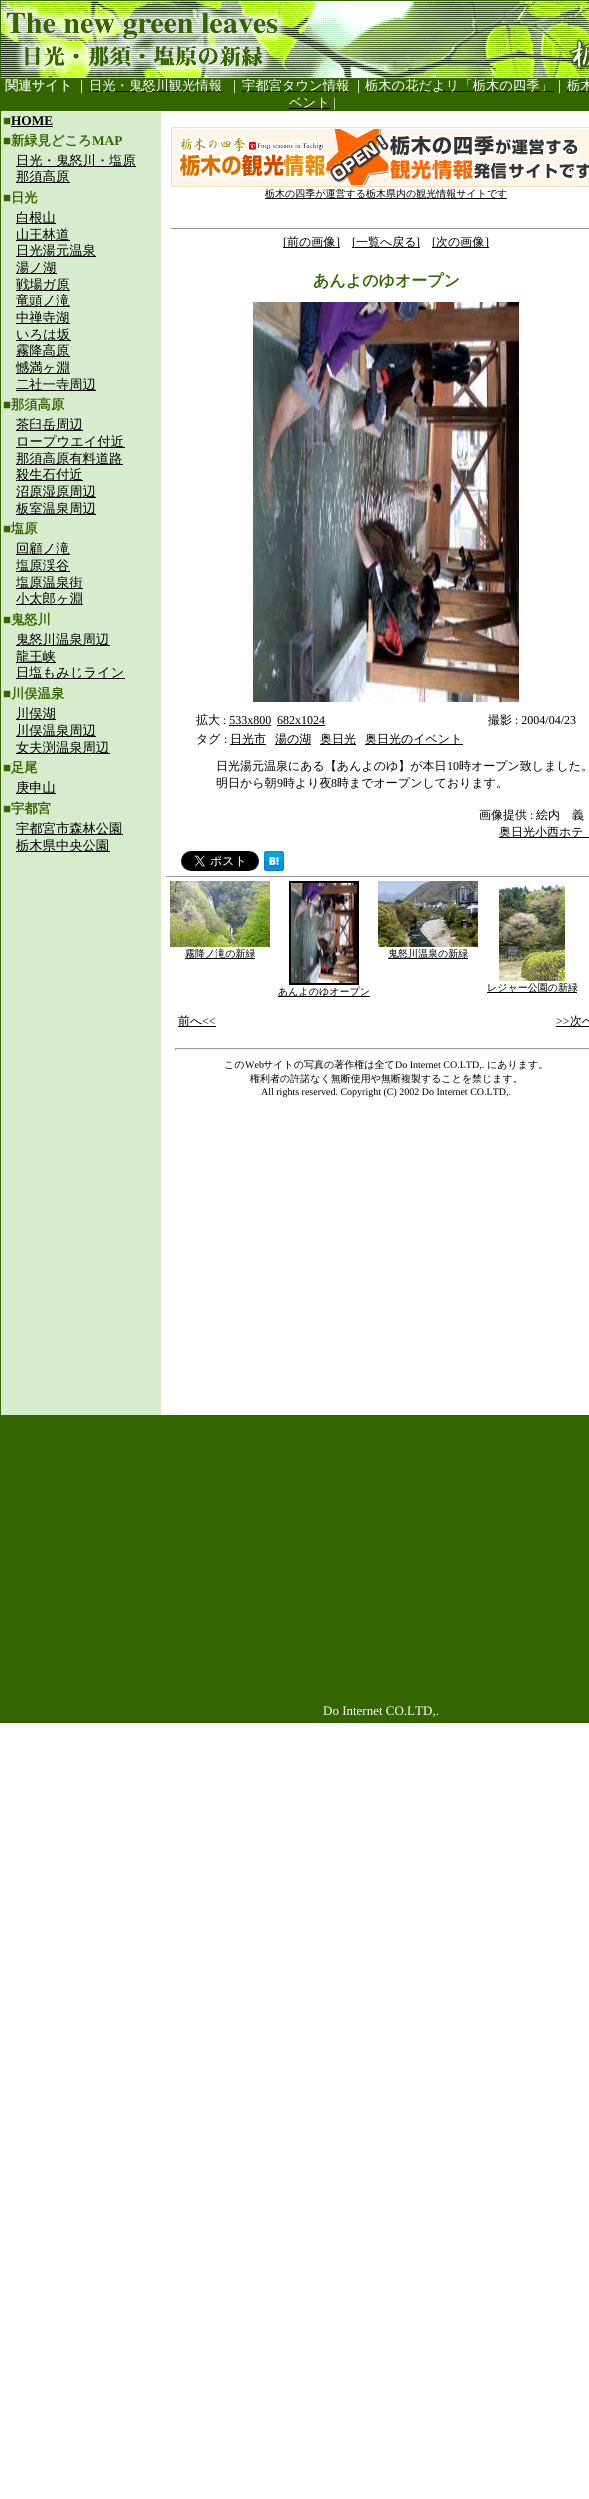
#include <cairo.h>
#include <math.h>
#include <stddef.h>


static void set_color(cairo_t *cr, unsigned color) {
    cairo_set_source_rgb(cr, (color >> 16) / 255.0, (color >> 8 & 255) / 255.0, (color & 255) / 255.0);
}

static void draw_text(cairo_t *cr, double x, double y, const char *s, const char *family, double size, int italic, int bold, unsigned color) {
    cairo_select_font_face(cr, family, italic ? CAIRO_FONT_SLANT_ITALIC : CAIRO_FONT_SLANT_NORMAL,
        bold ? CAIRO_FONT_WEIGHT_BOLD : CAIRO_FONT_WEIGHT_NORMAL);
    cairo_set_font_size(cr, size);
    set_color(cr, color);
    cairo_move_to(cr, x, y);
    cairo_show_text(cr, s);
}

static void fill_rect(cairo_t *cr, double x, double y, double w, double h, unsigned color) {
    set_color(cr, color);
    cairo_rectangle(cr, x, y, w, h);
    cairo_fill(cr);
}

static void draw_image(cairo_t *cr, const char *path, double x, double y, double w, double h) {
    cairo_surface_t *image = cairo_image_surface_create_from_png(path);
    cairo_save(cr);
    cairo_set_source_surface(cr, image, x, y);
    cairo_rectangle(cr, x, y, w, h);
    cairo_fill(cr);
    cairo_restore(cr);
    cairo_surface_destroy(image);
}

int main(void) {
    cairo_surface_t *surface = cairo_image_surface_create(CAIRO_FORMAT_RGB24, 589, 2499);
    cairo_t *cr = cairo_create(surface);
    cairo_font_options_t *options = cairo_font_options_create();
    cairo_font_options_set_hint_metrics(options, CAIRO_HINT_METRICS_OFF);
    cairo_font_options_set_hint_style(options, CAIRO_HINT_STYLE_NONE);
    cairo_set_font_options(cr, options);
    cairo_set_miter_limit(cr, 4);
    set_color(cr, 0xFFFFFF);
    cairo_paint(cr);
    fill_rect(cr, 0, 0, 589, 1723, 0x336600);
    draw_image(cr, "assets/img1.png", 1, 1, 588, 77);
    draw_text(cr, 5, 90, "関連サイト", "WenQuanYi Zen Hei", 13.3, 0, 1, 0xD7EBCD);
    draw_text(cr, 75, 90, "｜", "WenQuanYi Zen Hei Medium", 13.3, 0, 0, 0xFFFFFF);
    fill_rect(cr, 89, 91, 133, 1, 0x000000);
    draw_text(cr, 89, 90, "日光・鬼怒川観光情報", "WenQuanYi Zen Hei Medium", 13.3, 0, 0, 0xFFFFFF);
    draw_text(cr, 228, 90, "｜", "WenQuanYi Zen Hei Medium", 13.3, 0, 0, 0xFFFFFF);
    fill_rect(cr, 242, 91, 107, 1, 0x000000);
    draw_text(cr, 242, 90, "宇都宮タウン情報", "WenQuanYi Zen Hei Medium", 13.3, 0, 0, 0xFFFFFF);
    draw_text(cr, 352, 90, "｜", "WenQuanYi Zen Hei Medium", 13.3, 0, 0, 0xFFFFFF);
    fill_rect(cr, 365, 91, 189, 1, 0x000000);
    draw_text(cr, 365, 90, "栃木の花だよリ「栃木の四季」｜", "WenQuanYi Zen Hei Medium", 13.3, 0, 0, 0xFFFFFF);
    fill_rect(cr, 567, 91, 22, 1, 0x000000);
    draw_text(cr, 567, 90, "栃木", "WenQuanYi Zen Hei Medium", 13.3, 0, 0, 0xFFFFFF);
    fill_rect(cr, 289, 108, 41, 1, 0x000000);
    draw_text(cr, 289, 107, "ベント", "WenQuanYi Zen Hei Medium", 13.3, 0, 0, 0xFFFFFF);
    draw_text(cr, 333, 107, "|", "Liberation Serif", 13.3, 0, 0, 0xFFFFFF);
    fill_rect(cr, 161, 111, 428, 1304, 0xFFFFFF);
    fill_rect(cr, 1, 111, 160, 1304, 0xD7EBCD);
    draw_text(cr, 3, 125, "■", "Liberation Serif", 13.3, 0, 1, 0x336600);
    fill_rect(cr, 11, 126, 42, 1, 0x000000);
    draw_text(cr, 11, 125, "HOME", "Liberation Serif", 13.3, 0, 1, 0x000000);
    draw_text(cr, 3, 145, "■", "Liberation Serif", 13.3, 0, 1, 0x336600);
    draw_text(cr, 11, 145, "新緑見どころ", "WenQuanYi Zen Hei", 13.3, 0, 1, 0x336600);
    draw_text(cr, 92, 145, "MAP", "Liberation Serif", 13.3, 0, 1, 0x336600);
    fill_rect(cr, 16, 166, 120, 1, 0x000000);
    draw_text(cr, 16, 165, "日光・鬼怒川・塩原", "WenQuanYi Zen Hei Medium", 13.3, 0, 0, 0x000000);
    fill_rect(cr, 16, 182, 54, 1, 0x000000);
    draw_text(cr, 16, 181, "那須高原", "WenQuanYi Zen Hei Medium", 13.3, 0, 0, 0x000000);
    draw_text(cr, 3, 202, "■", "Liberation Serif", 13.3, 0, 1, 0x336600);
    draw_text(cr, 11, 202, "日光", "WenQuanYi Zen Hei", 13.3, 0, 1, 0x336600);
    fill_rect(cr, 16, 223, 40, 1, 0x000000);
    draw_text(cr, 16, 222, "白根山", "WenQuanYi Zen Hei Medium", 13.3, 0, 0, 0x000000);
    fill_rect(cr, 16, 240, 54, 1, 0x000000);
    draw_text(cr, 16, 239, "山王林道", "WenQuanYi Zen Hei Medium", 13.3, 0, 0, 0x000000);
    fill_rect(cr, 16, 256, 80, 1, 0x000000);
    draw_text(cr, 16, 255, "日光湯元温泉", "WenQuanYi Zen Hei Medium", 13.3, 0, 0, 0x000000);
    fill_rect(cr, 16, 273, 41, 1, 0x000000);
    draw_text(cr, 16, 272, "湯ノ湖", "WenQuanYi Zen Hei Medium", 13.3, 0, 0, 0x000000);
    fill_rect(cr, 16, 290, 54, 1, 0x000000);
    draw_text(cr, 16, 289, "戦場ガ原", "WenQuanYi Zen Hei Medium", 13.3, 0, 0, 0x000000);
    fill_rect(cr, 16, 306, 54, 1, 0x000000);
    draw_text(cr, 16, 305, "竜頭ノ滝", "WenQuanYi Zen Hei Medium", 13.3, 0, 0, 0x000000);
    fill_rect(cr, 16, 323, 54, 1, 0x000000);
    draw_text(cr, 16, 322, "中禅寺湖", "WenQuanYi Zen Hei Medium", 13.3, 0, 0, 0x000000);
    fill_rect(cr, 16, 340, 55, 1, 0x000000);
    draw_text(cr, 16, 339, "いろは坂", "WenQuanYi Zen Hei Medium", 13.3, 0, 0, 0x000000);
    fill_rect(cr, 16, 356, 54, 1, 0x000000);
    draw_text(cr, 16, 355, "霧降高原", "WenQuanYi Zen Hei Medium", 13.3, 0, 0, 0x000000);
    fill_rect(cr, 16, 373, 54, 1, 0x000000);
    draw_text(cr, 16, 372, "憾満ヶ淵", "WenQuanYi Zen Hei Medium", 13.3, 0, 0, 0x000000);
    fill_rect(cr, 16, 390, 80, 1, 0x000000);
    draw_text(cr, 16, 389, "二社一寺周辺", "WenQuanYi Zen Hei Medium", 13.3, 0, 0, 0x000000);
    draw_text(cr, 3, 409, "■", "Liberation Serif", 13.3, 0, 1, 0x336600);
    draw_text(cr, 11, 409, "那須高原", "WenQuanYi Zen Hei", 13.3, 0, 1, 0x336600);
    fill_rect(cr, 16, 430, 67, 1, 0x000000);
    draw_text(cr, 16, 429, "茶臼岳周辺", "WenQuanYi Zen Hei Medium", 13.3, 0, 0, 0x000000);
    fill_rect(cr, 16, 447, 109, 1, 0x000000);
    draw_text(cr, 16, 446, "ロープウエイ付近", "WenQuanYi Zen Hei Medium", 13.3, 0, 0, 0x000000);
    fill_rect(cr, 16, 464, 107, 1, 0x000000);
    draw_text(cr, 16, 463, "那須高原有料道路", "WenQuanYi Zen Hei Medium", 13.3, 0, 0, 0x000000);
    fill_rect(cr, 16, 480, 67, 1, 0x000000);
    draw_text(cr, 16, 479, "殺生石付近", "WenQuanYi Zen Hei Medium", 13.3, 0, 0, 0x000000);
    fill_rect(cr, 16, 497, 80, 1, 0x000000);
    draw_text(cr, 16, 496, "沼原湿原周辺", "WenQuanYi Zen Hei Medium", 13.3, 0, 0, 0x000000);
    fill_rect(cr, 16, 514, 80, 1, 0x000000);
    draw_text(cr, 16, 513, "板室温泉周辺", "WenQuanYi Zen Hei Medium", 13.3, 0, 0, 0x000000);
    draw_text(cr, 3, 533, "■", "Liberation Serif", 13.3, 0, 1, 0x336600);
    draw_text(cr, 11, 533, "塩原", "WenQuanYi Zen Hei", 13.3, 0, 1, 0x336600);
    fill_rect(cr, 16, 554, 54, 1, 0x000000);
    draw_text(cr, 16, 553, "回顧ノ滝", "WenQuanYi Zen Hei Medium", 13.3, 0, 0, 0x000000);
    fill_rect(cr, 16, 571, 54, 1, 0x000000);
    draw_text(cr, 16, 570, "塩原渓谷", "WenQuanYi Zen Hei Medium", 13.3, 0, 0, 0x000000);
    fill_rect(cr, 16, 588, 67, 1, 0x000000);
    draw_text(cr, 16, 587, "塩原温泉街", "WenQuanYi Zen Hei Medium", 13.3, 0, 0, 0x000000);
    fill_rect(cr, 16, 604, 67, 1, 0x000000);
    draw_text(cr, 16, 603, "小太郎ヶ淵", "WenQuanYi Zen Hei Medium", 13.3, 0, 0, 0x000000);
    draw_text(cr, 3, 624, "■", "Liberation Serif", 13.3, 0, 1, 0x336600);
    draw_text(cr, 11, 624, "鬼怒川", "WenQuanYi Zen Hei", 13.3, 0, 1, 0x336600);
    fill_rect(cr, 16, 645, 94, 1, 0x000000);
    draw_text(cr, 16, 644, "鬼怒川温泉周辺", "WenQuanYi Zen Hei Medium", 13.3, 0, 0, 0x000000);
    fill_rect(cr, 16, 662, 40, 1, 0x000000);
    draw_text(cr, 16, 661, "龍王峡", "WenQuanYi Zen Hei Medium", 13.3, 0, 0, 0x000000);
    fill_rect(cr, 16, 678, 109, 1, 0x000000);
    draw_text(cr, 16, 677, "日塩もみじライン", "WenQuanYi Zen Hei Medium", 13.3, 0, 0, 0x000000);
    draw_text(cr, 3, 698, "■", "Liberation Serif", 13.3, 0, 1, 0x336600);
    draw_text(cr, 11, 698, "川俣温泉", "WenQuanYi Zen Hei", 13.3, 0, 1, 0x336600);
    fill_rect(cr, 16, 719, 40, 1, 0x000000);
    draw_text(cr, 16, 718, "川俣湖", "WenQuanYi Zen Hei Medium", 13.3, 0, 0, 0x000000);
    fill_rect(cr, 16, 736, 80, 1, 0x000000);
    draw_text(cr, 16, 735, "川俣温泉周辺", "WenQuanYi Zen Hei Medium", 13.3, 0, 0, 0x000000);
    fill_rect(cr, 16, 753, 94, 1, 0x000000);
    draw_text(cr, 16, 752, "女夫渕温泉周辺", "WenQuanYi Zen Hei Medium", 13.3, 0, 0, 0x000000);
    draw_text(cr, 3, 772, "■", "Liberation Serif", 13.3, 0, 1, 0x336600);
    draw_text(cr, 11, 772, "足尾", "WenQuanYi Zen Hei", 13.3, 0, 1, 0x336600);
    fill_rect(cr, 16, 793, 40, 1, 0x000000);
    draw_text(cr, 16, 792, "庚申山", "WenQuanYi Zen Hei Medium", 13.3, 0, 0, 0x000000);
    draw_text(cr, 3, 813, "■", "Liberation Serif", 13.3, 0, 1, 0x336600);
    draw_text(cr, 11, 813, "宇都宮", "WenQuanYi Zen Hei", 13.3, 0, 1, 0x336600);
    fill_rect(cr, 16, 834, 107, 1, 0x000000);
    draw_text(cr, 16, 833, "宇都宮市森林公園", "WenQuanYi Zen Hei Medium", 13.3, 0, 0, 0x000000);
    fill_rect(cr, 16, 851, 94, 1, 0x000000);
    draw_text(cr, 16, 850, "栃木県中央公園", "WenQuanYi Zen Hei Medium", 13.3, 0, 0, 0x000000);
    draw_image(cr, "assets/img2.png", 171, 127, 418, 60);
    fill_rect(cr, 265, 198, 242, 1, 0x000000);
    draw_text(cr, 265, 197, "栃木の四季が運営する栃木県内の観光情報サイトです", "WenQuanYi Zen Hei Medium", 10, 0, 0, 0x000000);
    fill_rect(cr, 171, 228, 418, 1, 0x999999);
    fill_rect(cr, 283, 247, 57, 1, 0x000000);
    draw_text(cr, 283, 246, "[", "Liberation Serif", 12, 0, 0, 0x000000);
    draw_text(cr, 287, 246, "前の画像", "WenQuanYi Zen Hei Medium", 12, 0, 0, 0x000000);
    draw_text(cr, 336, 246, "]", "Liberation Serif", 12, 0, 0, 0x000000);
    fill_rect(cr, 352, 247, 68, 1, 0x000000);
    draw_text(cr, 352, 246, "[", "Liberation Serif", 12, 0, 0, 0x000000);
    draw_text(cr, 356, 246, "一覧へ戻る", "WenQuanYi Zen Hei Medium", 12, 0, 0, 0x000000);
    draw_text(cr, 416, 246, "]", "Liberation Serif", 12, 0, 0, 0x000000);
    fill_rect(cr, 432, 247, 57, 1, 0x000000);
    draw_text(cr, 432, 246, "[", "Liberation Serif", 12, 0, 0, 0x000000);
    draw_text(cr, 436, 246, "次の画像", "WenQuanYi Zen Hei Medium", 12, 0, 0, 0x000000);
    draw_text(cr, 485, 246, "]", "Liberation Serif", 12, 0, 0, 0x000000);
    draw_text(cr, 313, 286, "あんよのゆオープン", "WenQuanYi Zen Hei", 16, 0, 1, 0x336600);
    draw_image(cr, "assets/img3.png", 253, 302, 266, 400);
    draw_text(cr, 196, 724, "拡大", "WenQuanYi Zen Hei Medium", 12, 0, 0, 0x000000);
    draw_text(cr, 223, 724, ": 533x800", "Liberation Serif", 12, 0, 0, 0x000000);
    draw_text(cr, 277, 724, "682x1024", "Liberation Serif", 12, 0, 0, 0x000000);
    fill_rect(cr, 277, 725, 48, 1, 0x000000);
    fill_rect(cr, 229, 725, 42, 1, 0x000000);
    draw_text(cr, 488, 724, "撮影", "WenQuanYi Zen Hei Medium", 12, 0, 0, 0x000000);
    draw_text(cr, 515, 724, ": 2004/04/23", "Liberation Serif", 12, 0, 0, 0x000000);
    draw_text(cr, 196, 743, "タグ", "WenQuanYi Zen Hei Medium", 12, 0, 0, 0x000000);
    draw_text(cr, 224, 743, ":", "Liberation Serif", 12, 0, 0, 0x000000);
    fill_rect(cr, 230, 744, 36, 1, 0x000000);
    draw_text(cr, 230, 743, "日光市", "WenQuanYi Zen Hei Medium", 12, 0, 0, 0x000000);
    fill_rect(cr, 275, 744, 36, 1, 0x000000);
    draw_text(cr, 275, 743, "湯の湖", "WenQuanYi Zen Hei Medium", 12, 0, 0, 0x000000);
    fill_rect(cr, 320, 744, 36, 1, 0x000000);
    draw_text(cr, 320, 743, "奥日光", "WenQuanYi Zen Hei Medium", 12, 0, 0, 0x000000);
    fill_rect(cr, 365, 744, 98, 1, 0x000000);
    draw_text(cr, 365, 743, "奥日光のイベント", "WenQuanYi Zen Hei Medium", 12, 0, 0, 0x000000);
    draw_text(cr, 216, 770, "日光湯元温泉にある【あんよのゆ】が本日", "WenQuanYi Zen Hei Medium", 12, 0, 0, 0x000000);
    draw_text(cr, 447, 770, "10", "Liberation Serif", 12, 0, 0, 0x000000);
    draw_text(cr, 459, 770, "時オープン致しました。", "WenQuanYi Zen Hei Medium", 12, 0, 0, 0x000000);
    draw_text(cr, 216, 787, "明日から朝", "WenQuanYi Zen Hei Medium", 12, 0, 0, 0x000000);
    draw_text(cr, 277, 787, "9", "Liberation Serif", 12, 0, 0, 0x000000);
    draw_text(cr, 283, 787, "時より夜", "WenQuanYi Zen Hei Medium", 12, 0, 0, 0x000000);
    draw_text(cr, 331, 787, "8", "Liberation Serif", 12, 0, 0, 0x000000);
    draw_text(cr, 337, 787, "時までオープンしております。", "WenQuanYi Zen Hei Medium", 12, 0, 0, 0x000000);
    draw_text(cr, 479, 819, "画像提供", "WenQuanYi Zen Hei Medium", 12, 0, 0, 0x000000);
    draw_text(cr, 530, 819, ":", "Liberation Serif", 12, 0, 0, 0x000000);
    draw_text(cr, 536, 819, "絵内　義", "WenQuanYi Zen Hei Medium", 12, 0, 0, 0x000000);
    fill_rect(cr, 499, 837, 90, 1, 0x000000);
    draw_text(cr, 499, 836, "奥日光小西ホテ", "WenQuanYi Zen Hei Medium", 12, 0, 0, 0x000000);
    draw_image(cr, "assets/img4.png", 181, 851, 78, 20);
    draw_image(cr, "assets/img5.png", 264, 851, 20, 20);
    fill_rect(cr, 166, 876, 423, 1, 0x999999);
    draw_image(cr, "assets/img6.png", 170, 881, 100, 66);
    fill_rect(cr, 185, 958, 70, 1, 0x000000);
    draw_text(cr, 185, 957, "霧降ノ滝の新緑", "WenQuanYi Zen Hei Medium", 10, 0, 0, 0x000000);
    draw_image(cr, "assets/img7.png", 378, 881, 100, 66);
    fill_rect(cr, 388, 958, 80, 1, 0x000000);
    draw_text(cr, 388, 957, "鬼怒川温泉の新緑", "WenQuanYi Zen Hei Medium", 10, 0, 0, 0x000000);
    cairo_rectangle(cr, 290, 882, 68, 102);
    cairo_stroke(cr);
    draw_image(cr, "assets/img8.png", 291, 883, 66, 100);
    fill_rect(cr, 278, 996, 92, 1, 0x000000);
    draw_text(cr, 278, 995, "あんよのゆオープン", "WenQuanYi Zen Hei Medium", 10, 0, 0, 0x000000);
    draw_image(cr, "assets/img9.png", 499, 881, 66, 100);
    fill_rect(cr, 487, 992, 90, 1, 0x000000);
    draw_text(cr, 487, 991, "レジャー公園の新緑", "WenQuanYi Zen Hei Medium", 10, 0, 0, 0x000000);
    fill_rect(cr, 178, 1026, 38, 1, 0x000000);
    draw_text(cr, 178, 1025, "前へ", "WenQuanYi Zen Hei Medium", 12, 0, 0, 0x000000);
    draw_text(cr, 202, 1025, "<<", "Liberation Serif", 12, 0, 0, 0x000000);
    draw_text(cr, 556, 1025, ">>", "Liberation Serif", 12, 0, 0, 0x000000);
    fill_rect(cr, 556, 1026, 33, 1, 0x000000);
    draw_text(cr, 570, 1025, "次へ", "WenQuanYi Zen Hei Medium", 12, 0, 0, 0x000000);
    fill_rect(cr, 175, 1048, 414, 1, 0x9F9F9F);
    fill_rect(cr, 175, 1049, 414, 1, 0xEEEEEE);
    fill_rect(cr, 175, 1048, 1, 2, 0x9F9F9F);
    draw_text(cr, 224, 1068, "この", "WenQuanYi Zen Hei Medium", 10, 0, 0, 0x000000);
    draw_text(cr, 245, 1068, "Web", "Liberation Serif", 10, 0, 0, 0x000000);
    draw_text(cr, 263, 1068, "サイトの写真の著作権は全て", "WenQuanYi Zen Hei Medium", 10, 0, 0, 0x000000);
    draw_text(cr, 395, 1068, "Do Internet CO.LTD,.", "Liberation Serif", 10, 0, 0, 0x000000);
    draw_text(cr, 487, 1068, "にあります。", "WenQuanYi Zen Hei Medium", 10, 0, 0, 0x000000);
    draw_text(cr, 250, 1082, "権利者の許諾なく無断使用や無断複製することを禁じます。", "WenQuanYi Zen Hei Medium", 10, 0, 0, 0x000000);
    draw_text(cr, 261, 1095, "All rights reserved. Copyright (C) 2002 Do Internet CO.LTD,.", "Liberation Serif", 10, 0, 0, 0x000000);
    draw_text(cr, 323, 1715, "Do Internet CO.LTD,.", "Liberation Serif", 13, 0, 0, 0xFFFFFF);
    cairo_surface_write_to_png(surface, "output.png");
    cairo_font_options_destroy(options);
    cairo_destroy(cr);
    cairo_surface_destroy(surface);
    return 0;
}
